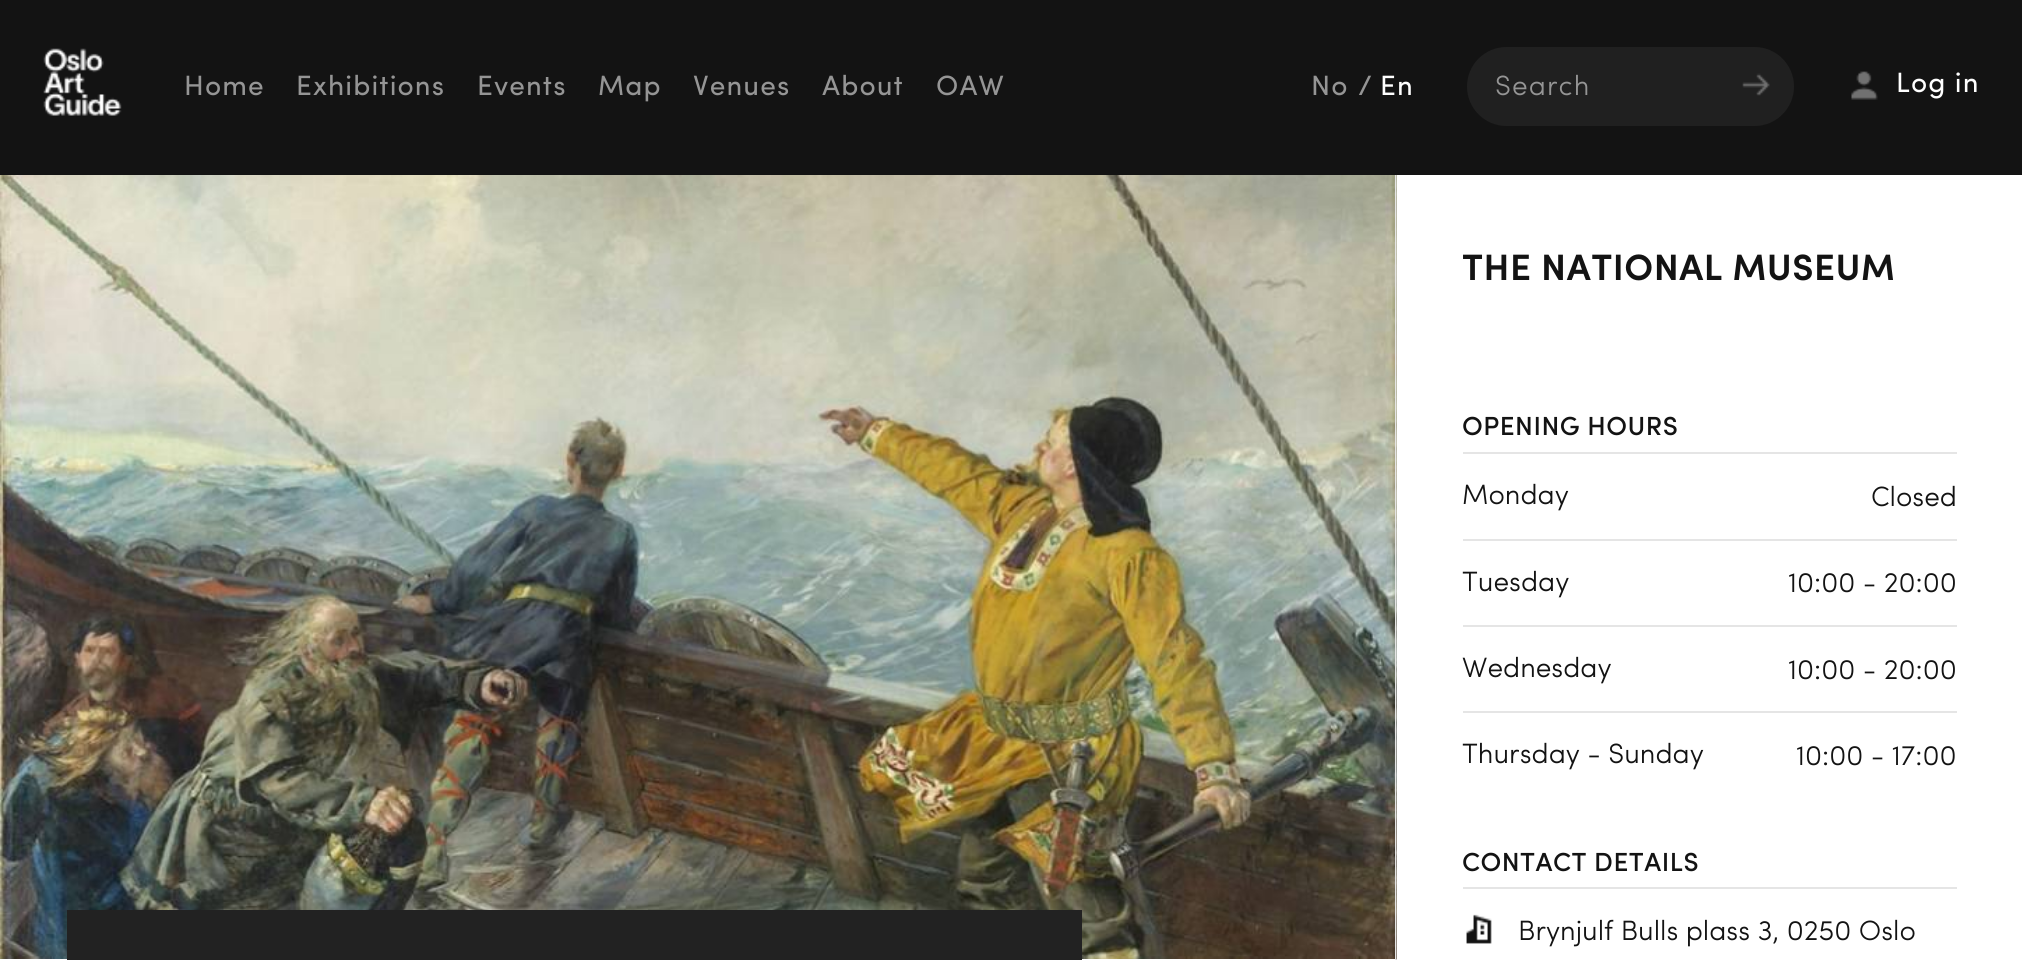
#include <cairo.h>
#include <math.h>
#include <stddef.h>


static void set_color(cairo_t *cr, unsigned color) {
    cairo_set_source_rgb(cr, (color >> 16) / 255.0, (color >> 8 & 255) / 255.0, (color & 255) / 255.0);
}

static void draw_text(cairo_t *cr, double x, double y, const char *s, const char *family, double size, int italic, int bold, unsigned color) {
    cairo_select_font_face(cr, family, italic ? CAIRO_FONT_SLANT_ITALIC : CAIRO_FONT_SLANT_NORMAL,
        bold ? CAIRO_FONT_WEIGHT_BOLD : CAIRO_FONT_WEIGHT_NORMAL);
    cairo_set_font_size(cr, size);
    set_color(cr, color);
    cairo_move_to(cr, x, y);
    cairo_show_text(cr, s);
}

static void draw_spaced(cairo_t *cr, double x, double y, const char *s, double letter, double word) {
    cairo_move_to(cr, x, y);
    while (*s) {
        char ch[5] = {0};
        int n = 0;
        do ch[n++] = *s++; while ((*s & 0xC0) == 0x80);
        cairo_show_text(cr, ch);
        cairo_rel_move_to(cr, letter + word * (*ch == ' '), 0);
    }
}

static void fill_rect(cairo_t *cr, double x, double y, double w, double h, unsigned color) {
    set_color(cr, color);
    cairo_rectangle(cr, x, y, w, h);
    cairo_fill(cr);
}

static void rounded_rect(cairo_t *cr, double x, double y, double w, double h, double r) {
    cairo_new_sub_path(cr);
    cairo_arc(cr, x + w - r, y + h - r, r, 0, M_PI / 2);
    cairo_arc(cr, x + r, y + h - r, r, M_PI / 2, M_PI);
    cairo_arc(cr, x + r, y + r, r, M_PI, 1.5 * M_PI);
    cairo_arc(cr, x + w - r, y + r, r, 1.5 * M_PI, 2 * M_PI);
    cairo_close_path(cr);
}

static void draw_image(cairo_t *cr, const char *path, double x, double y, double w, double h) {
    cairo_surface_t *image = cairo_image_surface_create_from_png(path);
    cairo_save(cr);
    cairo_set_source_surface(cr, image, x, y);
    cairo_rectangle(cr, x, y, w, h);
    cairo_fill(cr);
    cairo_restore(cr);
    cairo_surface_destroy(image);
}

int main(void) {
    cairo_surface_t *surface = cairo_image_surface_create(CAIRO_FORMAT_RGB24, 2022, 960);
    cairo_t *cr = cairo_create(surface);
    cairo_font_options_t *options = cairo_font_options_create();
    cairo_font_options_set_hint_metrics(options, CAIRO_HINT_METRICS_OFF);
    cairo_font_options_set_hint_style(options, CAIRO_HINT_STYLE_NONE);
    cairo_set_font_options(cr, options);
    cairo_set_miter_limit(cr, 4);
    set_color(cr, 0xFFFFFF);
    cairo_paint(cr);
    fill_rect(cr, 0, 0, 2022, 175, 0x131313);
    draw_image(cr, "assets/img1.png", 43, 48, 79, 68);
    cairo_select_font_face(cr, "Sofia", CAIRO_FONT_SLANT_NORMAL, CAIRO_FONT_WEIGHT_NORMAL);
    cairo_set_font_size(cr, 28);
    set_color(cr, 0x959595);
    draw_spaced(cr, 184, 95, "Home", 1.1, 0);
    draw_spaced(cr, 296, 95, "Exhibitions", 1.1, 0);
    draw_spaced(cr, 477, 95, "Events", 1.1, 0);
    draw_spaced(cr, 598, 95, "Map", 1.1, 0);
    draw_spaced(cr, 693, 95, "Venues", 1.1, 0);
    draw_spaced(cr, 822, 95, "About", 1.1, 0);
    draw_spaced(cr, 936, 95, "OAW", 1.1, 0);
    draw_spaced(cr, 1311, 95, "No", 1.1, 0);
    draw_text(cr, 1358, 95, "/", "Sofia", 28, 0, 0, 0x959595);
    set_color(cr, 0xFFFFFF);
    draw_spaced(cr, 1380, 95, "En", 1.1, 0);
    set_color(cr, 0x202020);
    rounded_rect(cr, 1467, 47, 327, 79, 39.5);
    cairo_fill(cr);
    cairo_select_font_face(cr, "Sofia Light", CAIRO_FONT_SLANT_NORMAL, CAIRO_FONT_WEIGHT_NORMAL);
    set_color(cr, 0x959595);
    draw_spaced(cr, 1495, 95, "Search", 1.1, 0);
    draw_image(cr, "assets/img2.png", 1742, 73, 28, 23);
    draw_image(cr, "assets/img3.png", 1851, 71, 27, 29);
    cairo_select_font_face(cr, "Sofia", CAIRO_FONT_SLANT_NORMAL, CAIRO_FONT_WEIGHT_NORMAL);
    set_color(cr, 0xFFFFFF);
    draw_spaced(cr, 1896, 92, "Log in", 1.1, 0);
    fill_rect(cr, 1396, 175, 1, 785, 0xCECECE);
    draw_image(cr, "assets/img4.png", 0, 175, 1397, 784);
    fill_rect(cr, 67, 910, 1015, 50, 0x222222);
    set_color(cr, 0xE5E5E5);
    cairo_new_path(cr);
    cairo_move_to(cr, 1395, 175);
    cairo_line_to(cr, 1395, 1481);
    cairo_line_to(cr, 2021, 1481);
    cairo_line_to(cr, 2021, 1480);
    cairo_line_to(cr, 1396, 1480);
    cairo_line_to(cr, 1396, 175);
    cairo_close_path(cr);
    cairo_fill(cr);
    cairo_select_font_face(cr, "Sofia SemiBold", CAIRO_FONT_SLANT_NORMAL, CAIRO_FONT_WEIGHT_NORMAL);
    cairo_set_font_size(cr, 36.75);
    set_color(cr, 0x131313);
    draw_spaced(cr, 1462, 280, "THE NATIONAL MUSEUM", 0.5, 0);
    cairo_select_font_face(cr, "Sofia Medium", CAIRO_FONT_SLANT_NORMAL, CAIRO_FONT_WEIGHT_NORMAL);
    cairo_set_font_size(cr, 26.25);
    draw_spaced(cr, 1462, 435, "OPENING HOURS", 0.5, 0);
    fill_rect(cr, 1463, 452, 494, 2, 0xE5E5E5);
    draw_text(cr, 1462, 504, "Monday", "Sofia Light", 28, 0, 0, 0x131313);
    draw_text(cr, 1871, 506, "Closed", "Sofia Light", 28, 0, 0, 0x131313);
    fill_rect(cr, 1463, 539, 494, 2, 0xE5E5E5);
    draw_text(cr, 1462, 591, "Tuesday", "Sofia Light", 28, 0, 0, 0x131313);
    draw_text(cr, 1788, 592, "10:00 - 20:00", "Sofia Light", 28, 0, 0, 0x131313);
    fill_rect(cr, 1463, 625, 494, 2, 0xE5E5E5);
    draw_text(cr, 1462, 677, "Wednesday", "Sofia Light", 28, 0, 0, 0x131313);
    draw_text(cr, 1788, 679, "10:00 - 20:00", "Sofia Light", 28, 0, 0, 0x131313);
    fill_rect(cr, 1463, 711, 494, 2, 0xE5E5E5);
    draw_text(cr, 1462, 763, "Thursday - Sunday", "Sofia Light", 28, 0, 0, 0x131313);
    draw_text(cr, 1796, 765, "10:00 - 17:00", "Sofia Light", 28, 0, 0, 0x131313);
    cairo_select_font_face(cr, "Sofia Medium", CAIRO_FONT_SLANT_NORMAL, CAIRO_FONT_WEIGHT_NORMAL);
    cairo_set_font_size(cr, 26.25);
    draw_spaced(cr, 1462, 871, "CONTACT DETAILS", 0.5, 0);
    fill_rect(cr, 1463, 887, 494, 2, 0xE5E5E5);
    draw_image(cr, "assets/img5.png", 1466, 914, 26, 30);
    draw_text(cr, 1518, 940, "Brynjulf Bulls plass 3, 0250 Oslo", "Sofia Light", 28, 0, 0, 0x131313);
    cairo_surface_write_to_png(surface, "output.png");
    cairo_font_options_destroy(options);
    cairo_destroy(cr);
    cairo_surface_destroy(surface);
    return 0;
}
